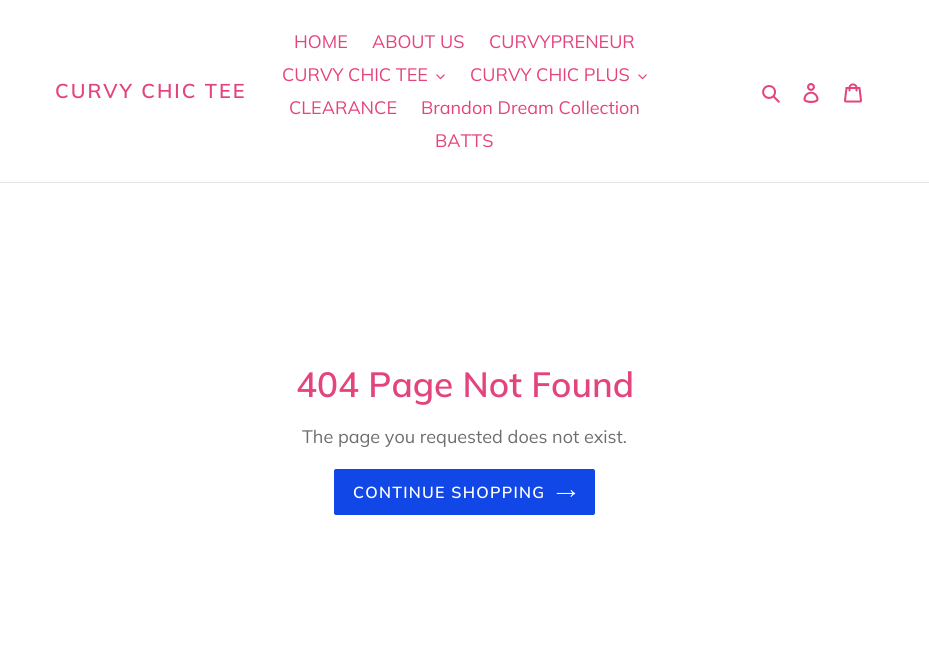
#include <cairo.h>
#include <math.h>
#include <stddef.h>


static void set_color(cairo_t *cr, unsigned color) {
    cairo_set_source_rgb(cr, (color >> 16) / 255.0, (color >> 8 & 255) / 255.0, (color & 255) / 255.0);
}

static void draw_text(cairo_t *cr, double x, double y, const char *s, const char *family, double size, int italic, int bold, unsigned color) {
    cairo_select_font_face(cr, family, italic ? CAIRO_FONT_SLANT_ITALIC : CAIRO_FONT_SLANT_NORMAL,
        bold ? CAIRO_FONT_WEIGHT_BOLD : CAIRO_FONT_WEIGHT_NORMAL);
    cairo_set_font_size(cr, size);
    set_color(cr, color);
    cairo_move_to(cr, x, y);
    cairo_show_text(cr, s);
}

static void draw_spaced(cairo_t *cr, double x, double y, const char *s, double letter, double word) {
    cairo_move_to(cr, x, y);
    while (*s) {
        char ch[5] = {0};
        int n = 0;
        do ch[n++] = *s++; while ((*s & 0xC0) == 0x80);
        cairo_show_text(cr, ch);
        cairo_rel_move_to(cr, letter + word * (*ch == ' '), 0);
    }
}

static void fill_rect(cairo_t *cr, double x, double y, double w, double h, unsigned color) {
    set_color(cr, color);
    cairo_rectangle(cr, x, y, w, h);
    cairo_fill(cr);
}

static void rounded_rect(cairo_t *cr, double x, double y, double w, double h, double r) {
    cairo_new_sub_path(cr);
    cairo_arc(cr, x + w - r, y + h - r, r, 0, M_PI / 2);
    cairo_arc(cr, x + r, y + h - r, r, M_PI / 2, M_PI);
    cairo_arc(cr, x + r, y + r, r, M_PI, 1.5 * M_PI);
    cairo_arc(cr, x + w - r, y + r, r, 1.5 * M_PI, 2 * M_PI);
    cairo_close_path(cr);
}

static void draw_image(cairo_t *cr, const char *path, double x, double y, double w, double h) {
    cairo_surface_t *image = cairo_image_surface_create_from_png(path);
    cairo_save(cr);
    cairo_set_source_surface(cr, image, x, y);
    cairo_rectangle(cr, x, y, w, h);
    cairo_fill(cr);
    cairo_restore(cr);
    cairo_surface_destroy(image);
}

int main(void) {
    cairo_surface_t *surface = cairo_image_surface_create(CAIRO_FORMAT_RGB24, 929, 666);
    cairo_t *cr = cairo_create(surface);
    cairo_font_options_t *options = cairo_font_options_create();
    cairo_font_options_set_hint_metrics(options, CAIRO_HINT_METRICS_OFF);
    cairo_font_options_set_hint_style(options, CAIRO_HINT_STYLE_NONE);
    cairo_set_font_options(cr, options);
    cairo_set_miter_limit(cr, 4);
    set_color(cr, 0xFFFFFF);
    cairo_paint(cr);
    fill_rect(cr, 0, 182, 929, 1, 0xE4E4E4);
    cairo_select_font_face(cr, "Muli SemiBold", CAIRO_FONT_SLANT_NORMAL, CAIRO_FONT_WEIGHT_NORMAL);
    cairo_set_font_size(cr, 20);
    set_color(cr, 0xE4447E);
    draw_spaced(cr, 55, 98, "CURVY CHIC TEE", 2, 0);
    draw_text(cr, 294, 48, "HOME", "Muli", 18, 0, 0, 0xE4447E);
    draw_text(cr, 372, 48, "ABOUT US", "Muli", 18, 0, 0, 0xE4447E);
    draw_text(cr, 489, 48, "CURVYPRENEUR", "Muli", 18, 0, 0, 0xE4447E);
    draw_text(cr, 282, 81, "CURVY CHIC TEE", "Muli", 18, 0, 0, 0xE4447E);
    draw_image(cr, "assets/img1.png", 436, 74, 9, 6);
    draw_text(cr, 470, 81, "CURVY CHIC PLUS", "Muli", 18, 0, 0, 0xE4447E);
    draw_image(cr, "assets/img1.png", 638, 74, 9, 6);
    draw_text(cr, 289, 114, "CLEARANCE", "Muli", 18, 0, 0, 0xE4447E);
    draw_text(cr, 421, 114, "Brandon Dream Collection", "Muli", 18, 0, 0, 0xE4447E);
    draw_text(cr, 435, 147, "BATTS", "Muli", 18, 0, 0, 0xE4447E);
    draw_image(cr, "assets/img2.png", 762, 85, 18, 18);
    draw_image(cr, "assets/img3.png", 803, 83, 16, 20);
    draw_image(cr, "assets/img4.png", 844, 83, 18, 20);
    draw_text(cr, 296, 397, "404 Page Not Found", "Muli SemiBold", 35, 0, 0, 0xE4447E);
    draw_text(cr, 302, 443, "The page you requested does not exist.", "Muli", 18, 0, 0, 0x6D6D6D);
    set_color(cr, 0x1147E6);
    rounded_rect(cr, 334, 469, 261, 46, 2);
    cairo_fill(cr);
    cairo_select_font_face(cr, "Muli SemiBold", CAIRO_FONT_SLANT_NORMAL, CAIRO_FONT_WEIGHT_NORMAL);
    cairo_set_font_size(cr, 16);
    set_color(cr, 0xFFFFFF);
    draw_spaced(cr, 353, 498, "CONTINUE SHOPPING", 1.25, 0);
    draw_image(cr, "assets/img5.png", 556, 489, 20, 8);
    cairo_surface_write_to_png(surface, "output.png");
    cairo_font_options_destroy(options);
    cairo_destroy(cr);
    cairo_surface_destroy(surface);
    return 0;
}
